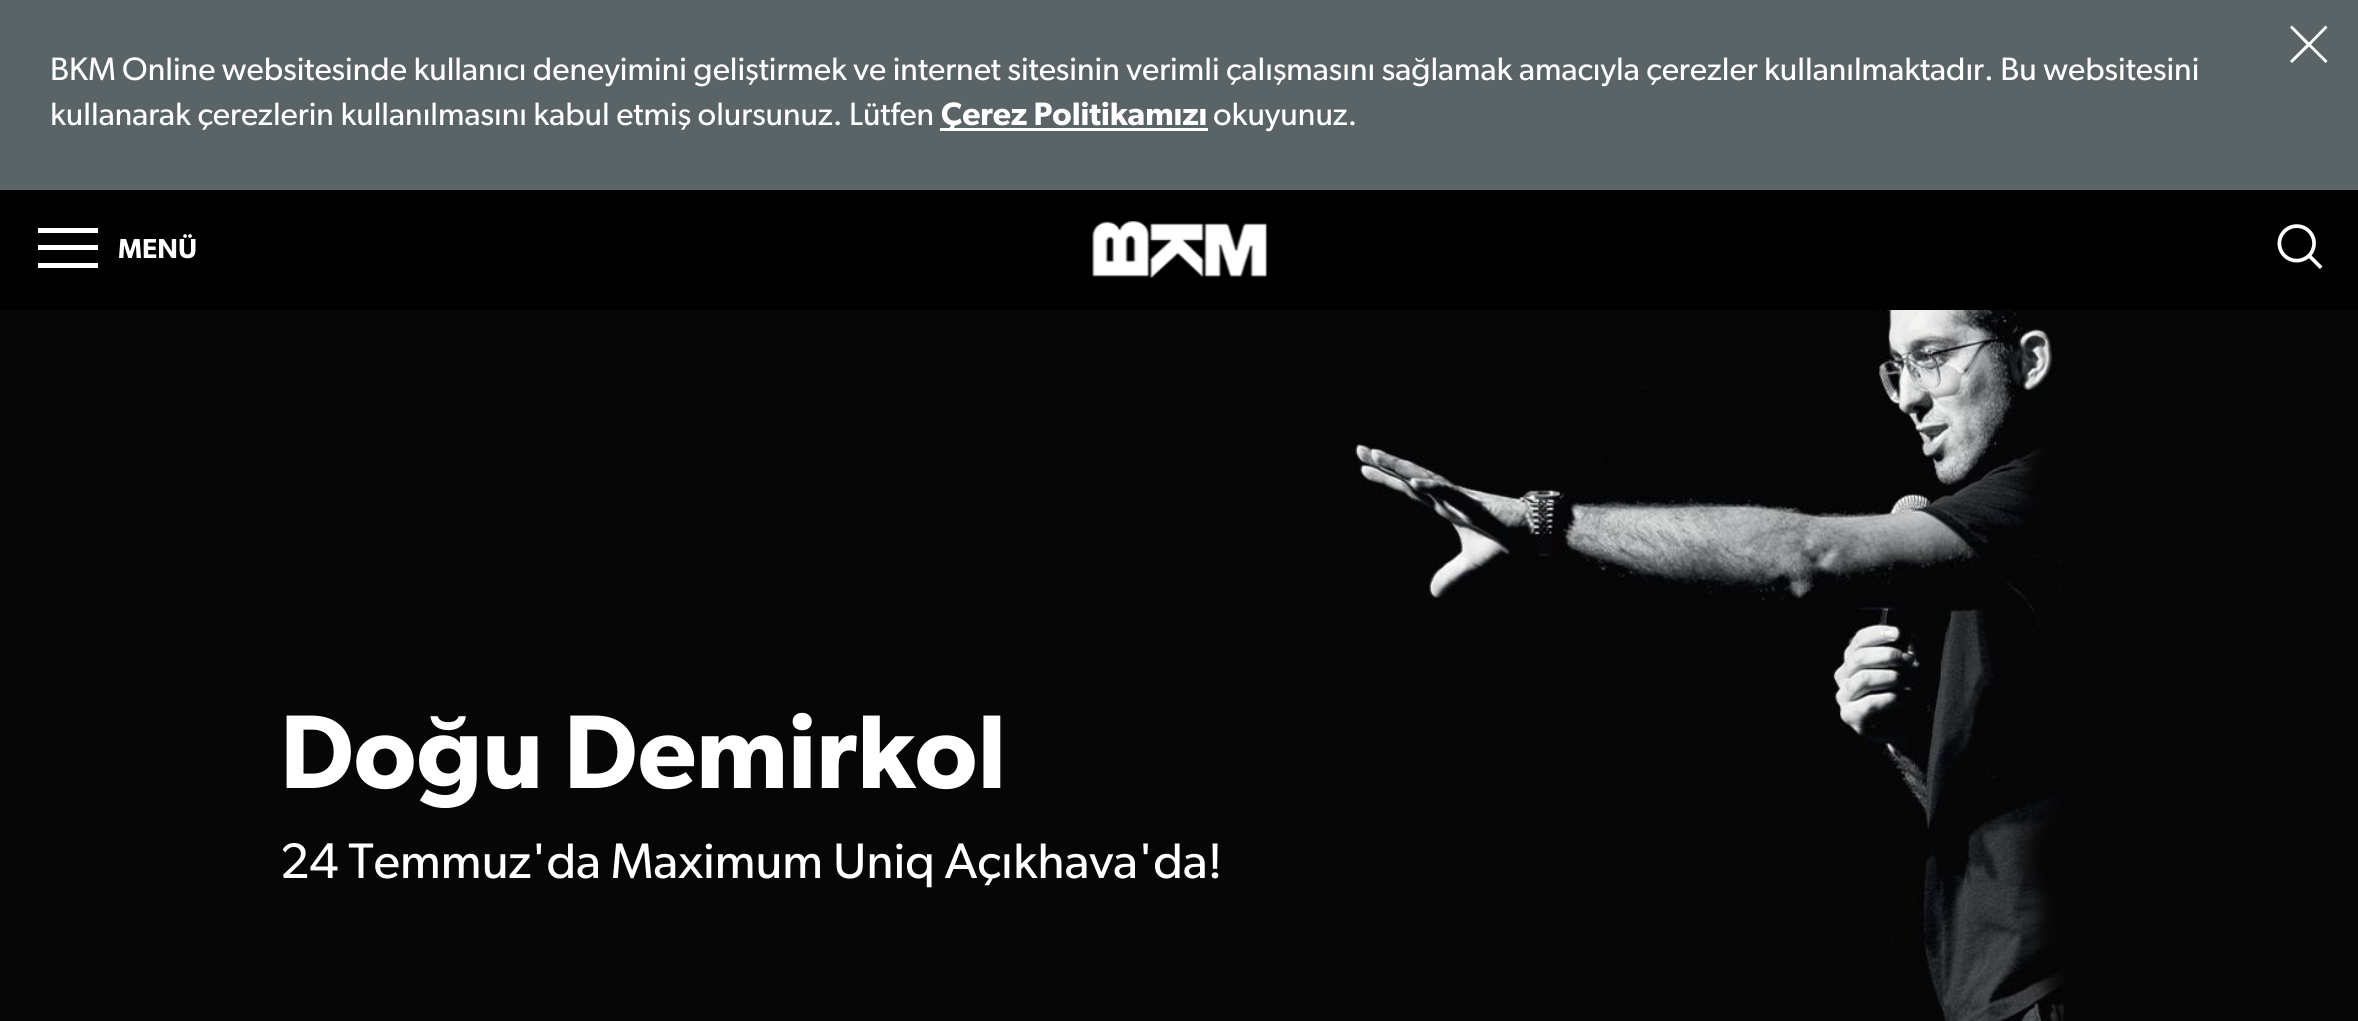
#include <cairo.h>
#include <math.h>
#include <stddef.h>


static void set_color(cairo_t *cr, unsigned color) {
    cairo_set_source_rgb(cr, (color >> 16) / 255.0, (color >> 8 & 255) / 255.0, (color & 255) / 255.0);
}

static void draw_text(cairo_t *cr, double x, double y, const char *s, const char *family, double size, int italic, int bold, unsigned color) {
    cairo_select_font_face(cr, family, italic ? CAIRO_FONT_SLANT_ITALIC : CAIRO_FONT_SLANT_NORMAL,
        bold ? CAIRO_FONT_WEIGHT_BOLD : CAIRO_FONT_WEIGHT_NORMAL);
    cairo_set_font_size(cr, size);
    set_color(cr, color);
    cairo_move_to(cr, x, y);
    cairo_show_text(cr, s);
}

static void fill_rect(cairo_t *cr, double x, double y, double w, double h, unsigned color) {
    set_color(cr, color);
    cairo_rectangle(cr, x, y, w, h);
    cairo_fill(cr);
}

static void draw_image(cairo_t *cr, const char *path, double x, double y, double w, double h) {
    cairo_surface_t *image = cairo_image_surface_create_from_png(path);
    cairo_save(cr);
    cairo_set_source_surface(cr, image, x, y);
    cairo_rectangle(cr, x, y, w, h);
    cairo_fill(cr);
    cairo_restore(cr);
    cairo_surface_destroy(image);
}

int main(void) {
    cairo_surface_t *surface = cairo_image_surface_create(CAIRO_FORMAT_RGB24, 2358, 1021);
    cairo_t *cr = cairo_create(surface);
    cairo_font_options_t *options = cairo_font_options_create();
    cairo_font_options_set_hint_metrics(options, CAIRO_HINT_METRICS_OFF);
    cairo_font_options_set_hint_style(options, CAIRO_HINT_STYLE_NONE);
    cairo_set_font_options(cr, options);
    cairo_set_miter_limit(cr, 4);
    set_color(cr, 0xFFFFFF);
    cairo_paint(cr);
    fill_rect(cr, 0, 0, 2358, 190, 0x5A6466);
    set_color(cr, 0xFFFFFF);
    cairo_new_path(cr);
    cairo_move_to(cr, 2311, 44.5);
    cairo_line_to(cr, 2327.5, 61);
    cairo_line_to(cr, 2325.5, 63);
    cairo_line_to(cr, 2309, 46.5);
    cairo_line_to(cr, 2292, 63);
    cairo_line_to(cr, 2290, 61);
    cairo_line_to(cr, 2306.5, 44.5);
    cairo_line_to(cr, 2290, 27.5);
    cairo_line_to(cr, 2292, 25.5);
    cairo_line_to(cr, 2309, 42.5);
    cairo_line_to(cr, 2325.5, 25.5);
    cairo_line_to(cr, 2327.5, 27.5);
    cairo_close_path(cr);
    cairo_fill(cr);
    draw_text(cr, 50, 80, "BKM Online websitesinde kullanıcı deneyimini geliştirmek ve internet sitesinin verimli çalışmasını sağlamak amacıyla çerezler kullanılmaktadır. Bu websitesini", "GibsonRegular", 32.5, 0, 0, 0xFFFFFF);
    draw_text(cr, 50, 125, "kullanarak çerezlerin kullanılmasını kabul etmiş olursunuz. Lütfen", "GibsonRegular", 32.5, 0, 0, 0xFFFFFF);
    fill_rect(cr, 940, 128, 268, 3, 0xFFFFFF);
    draw_text(cr, 941, 125, "Çerez Politikamızı", "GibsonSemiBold", 32.5, 0, 0, 0xFFFFFF);
    draw_text(cr, 1213, 125, "okuyunuz.", "GibsonRegular", 32.5, 0, 0, 0xFFFFFF);
    fill_rect(cr, 0, 190, 2358, 120, 0x000000);
    fill_rect(cr, 38, 228, 60, 5, 0xFFFFFF);
    fill_rect(cr, 38, 245, 60, 5, 0xFFFFFF);
    draw_text(cr, 118, 258, "MENÜ", "GibsonSemiBold", 27.5, 0, 0, 0xFFFFFF);
    fill_rect(cr, 38, 263, 60, 5, 0xFFFFFF);
    draw_image(cr, "assets/img1.png", 1092, 221, 175, 57);
    draw_image(cr, "assets/img2.png", 2277, 224, 46, 45);
    draw_image(cr, "assets/img3.png", 0, 310, 2358, 711);
    draw_text(cr, 280, 788, "Doğu Demirkol", "GibsonSemiBold", 105, 0, 0, 0xFFFFFF);
    draw_text(cr, 280, 878, "24 Temmuz'da Maximum Uniq Açıkhava'da!", "GibsonRegular", 50, 0, 0, 0xFFFFFF);
    cairo_surface_write_to_png(surface, "output.png");
    cairo_font_options_destroy(options);
    cairo_destroy(cr);
    cairo_surface_destroy(surface);
    return 0;
}
